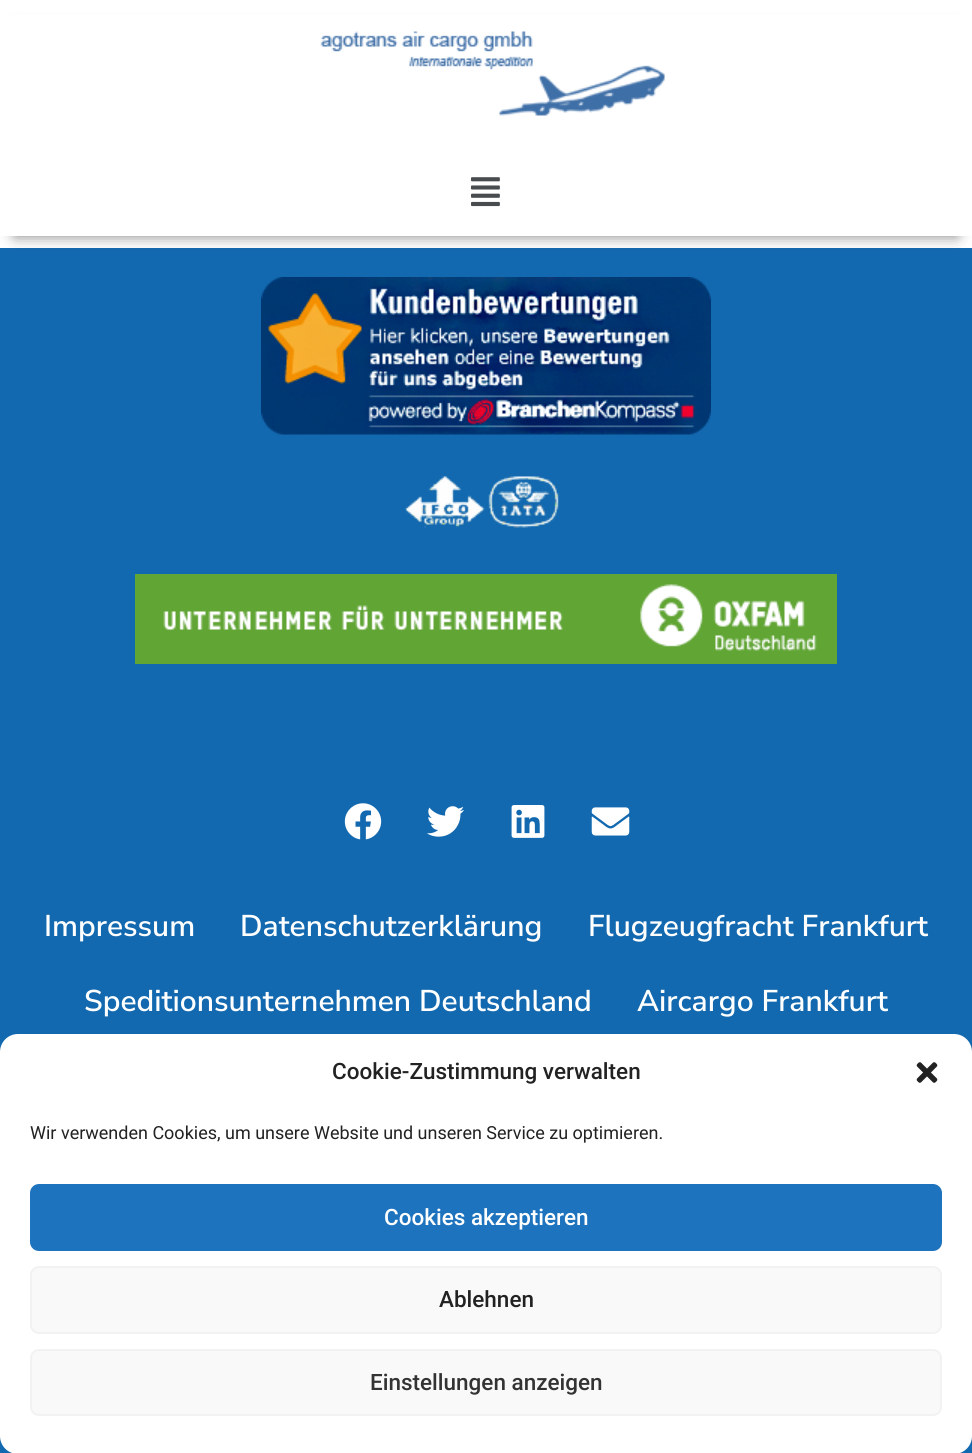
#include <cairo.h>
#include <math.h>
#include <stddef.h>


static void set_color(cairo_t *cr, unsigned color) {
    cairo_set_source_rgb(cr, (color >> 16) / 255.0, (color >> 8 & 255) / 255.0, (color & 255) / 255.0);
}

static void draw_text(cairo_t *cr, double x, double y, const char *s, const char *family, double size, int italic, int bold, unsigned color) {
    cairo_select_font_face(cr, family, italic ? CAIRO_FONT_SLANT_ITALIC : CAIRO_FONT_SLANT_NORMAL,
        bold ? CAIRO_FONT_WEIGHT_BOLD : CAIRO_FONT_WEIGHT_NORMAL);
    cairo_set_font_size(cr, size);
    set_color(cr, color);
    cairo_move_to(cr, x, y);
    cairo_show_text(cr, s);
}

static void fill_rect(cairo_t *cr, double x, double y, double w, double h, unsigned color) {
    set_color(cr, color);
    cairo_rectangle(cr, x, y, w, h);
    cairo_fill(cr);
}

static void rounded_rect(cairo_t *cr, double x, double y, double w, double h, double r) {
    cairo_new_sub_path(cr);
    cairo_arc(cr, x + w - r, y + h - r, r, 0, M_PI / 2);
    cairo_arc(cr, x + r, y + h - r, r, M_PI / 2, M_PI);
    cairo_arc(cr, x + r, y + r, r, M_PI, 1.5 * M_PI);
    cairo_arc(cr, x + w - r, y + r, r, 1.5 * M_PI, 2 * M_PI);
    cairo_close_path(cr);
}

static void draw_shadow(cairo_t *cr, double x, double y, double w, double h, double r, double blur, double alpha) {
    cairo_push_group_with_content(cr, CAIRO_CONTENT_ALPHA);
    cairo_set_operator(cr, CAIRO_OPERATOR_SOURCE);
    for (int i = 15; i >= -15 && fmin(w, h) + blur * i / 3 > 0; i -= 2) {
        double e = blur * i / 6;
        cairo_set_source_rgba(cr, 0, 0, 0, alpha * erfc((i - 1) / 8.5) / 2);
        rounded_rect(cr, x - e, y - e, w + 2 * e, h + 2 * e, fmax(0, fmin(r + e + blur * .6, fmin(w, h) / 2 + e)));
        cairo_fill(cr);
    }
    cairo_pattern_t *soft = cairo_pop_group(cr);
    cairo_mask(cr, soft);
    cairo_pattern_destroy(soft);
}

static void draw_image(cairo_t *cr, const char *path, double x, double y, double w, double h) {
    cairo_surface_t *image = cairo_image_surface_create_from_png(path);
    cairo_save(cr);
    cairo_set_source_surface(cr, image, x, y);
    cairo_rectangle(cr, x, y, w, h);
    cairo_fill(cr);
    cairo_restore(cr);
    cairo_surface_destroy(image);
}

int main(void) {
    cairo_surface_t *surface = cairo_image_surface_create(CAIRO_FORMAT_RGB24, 972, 1453);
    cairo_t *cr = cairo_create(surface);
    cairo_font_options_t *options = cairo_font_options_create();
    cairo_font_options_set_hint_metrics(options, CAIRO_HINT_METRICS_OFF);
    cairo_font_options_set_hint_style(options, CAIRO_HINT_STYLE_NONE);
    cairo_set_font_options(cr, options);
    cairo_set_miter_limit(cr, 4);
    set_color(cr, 0xFFFFFF);
    cairo_paint(cr);
    fill_rect(cr, 0, 248, 972, 1205, 0x1369B0);
    set_color(cr, 0x000000);
    draw_shadow(cr, 15, 30, 942, 206, 0, 7.5, 0.5);
    fill_rect(cr, 0, 15, 972, 221, 0xFFFFFF);
    draw_image(cr, "assets/img1.png", 320, 31, 345, 85);
    draw_image(cr, "assets/img2.png", 471, 177, 29, 30);
    draw_image(cr, "assets/img3.png", 261, 277, 450, 158);
    draw_image(cr, "assets/img4.png", 405, 476, 154, 52);
    draw_image(cr, "assets/img5.png", 135, 574, 702, 90);
    draw_image(cr, "assets/img6.png", 344, 803, 38, 37);
    draw_image(cr, "assets/img7.png", 427, 806, 38, 31);
    draw_image(cr, "assets/img8.png", 511, 805, 34, 33);
    draw_image(cr, "assets/img9.png", 591, 807, 39, 29);
    draw_text(cr, 44, 936, "Impressum", "Nunito Sans SemiBold", 30, 0, 0, 0xFFFFFF);
    draw_text(cr, 240, 936, "Datenschutzerklärung", "Nunito Sans SemiBold", 30, 0, 0, 0xFFFFFF);
    draw_text(cr, 588, 936, "Flugzeugfracht Frankfurt", "Nunito Sans SemiBold", 30, 0, 0, 0xFFFFFF);
    draw_text(cr, 84, 1011, "Speditionsunternehmen Deutschland", "Nunito Sans SemiBold", 30, 0, 0, 0xFFFFFF);
    draw_text(cr, 637, 1011, "Aircargo Frankfurt", "Nunito Sans SemiBold", 30, 0, 0, 0xFFFFFF);
    rounded_rect(cr, 0, 1034, 972, 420, 18);
    cairo_fill(cr);
    draw_text(cr, 332, 1079, "Cookie-Zustimmung verwalten", "Roboto Medium", 22.5, 0, 0, 0x222222);
    draw_image(cr, "assets/img10.png", 916, 1062, 22, 21);
    draw_text(cr, 30, 1139, "Wir verwenden Cookies, um unsere Website und unseren Service zu optimieren.", "Roboto", 18, 0, 0, 0x222222);
    set_color(cr, 0x1E73BE);
    rounded_rect(cr, 31, 1185, 910, 65, 8);
    cairo_fill_preserve(cr);
    cairo_stroke(cr);
    draw_text(cr, 384, 1225, "Cookies akzeptieren", "Roboto Medium", 22.5, 0, 0, 0xFFFFFF);
    set_color(cr, 0xF9F9F9);
    rounded_rect(cr, 31, 1267, 910, 66, 8);
    cairo_fill_preserve(cr);
    set_color(cr, 0xF2F2F2);
    cairo_stroke(cr);
    draw_text(cr, 439, 1307, "Ablehnen", "Roboto Medium", 22.5, 0, 0, 0x222222);
    set_color(cr, 0xF9F9F9);
    rounded_rect(cr, 31, 1350, 910, 65, 8);
    cairo_fill_preserve(cr);
    set_color(cr, 0xF2F2F2);
    cairo_stroke(cr);
    draw_text(cr, 370, 1390, "Einstellungen anzeigen", "Roboto Medium", 22.5, 0, 0, 0x333333);
    cairo_surface_write_to_png(surface, "output.png");
    cairo_font_options_destroy(options);
    cairo_destroy(cr);
    cairo_surface_destroy(surface);
    return 0;
}
